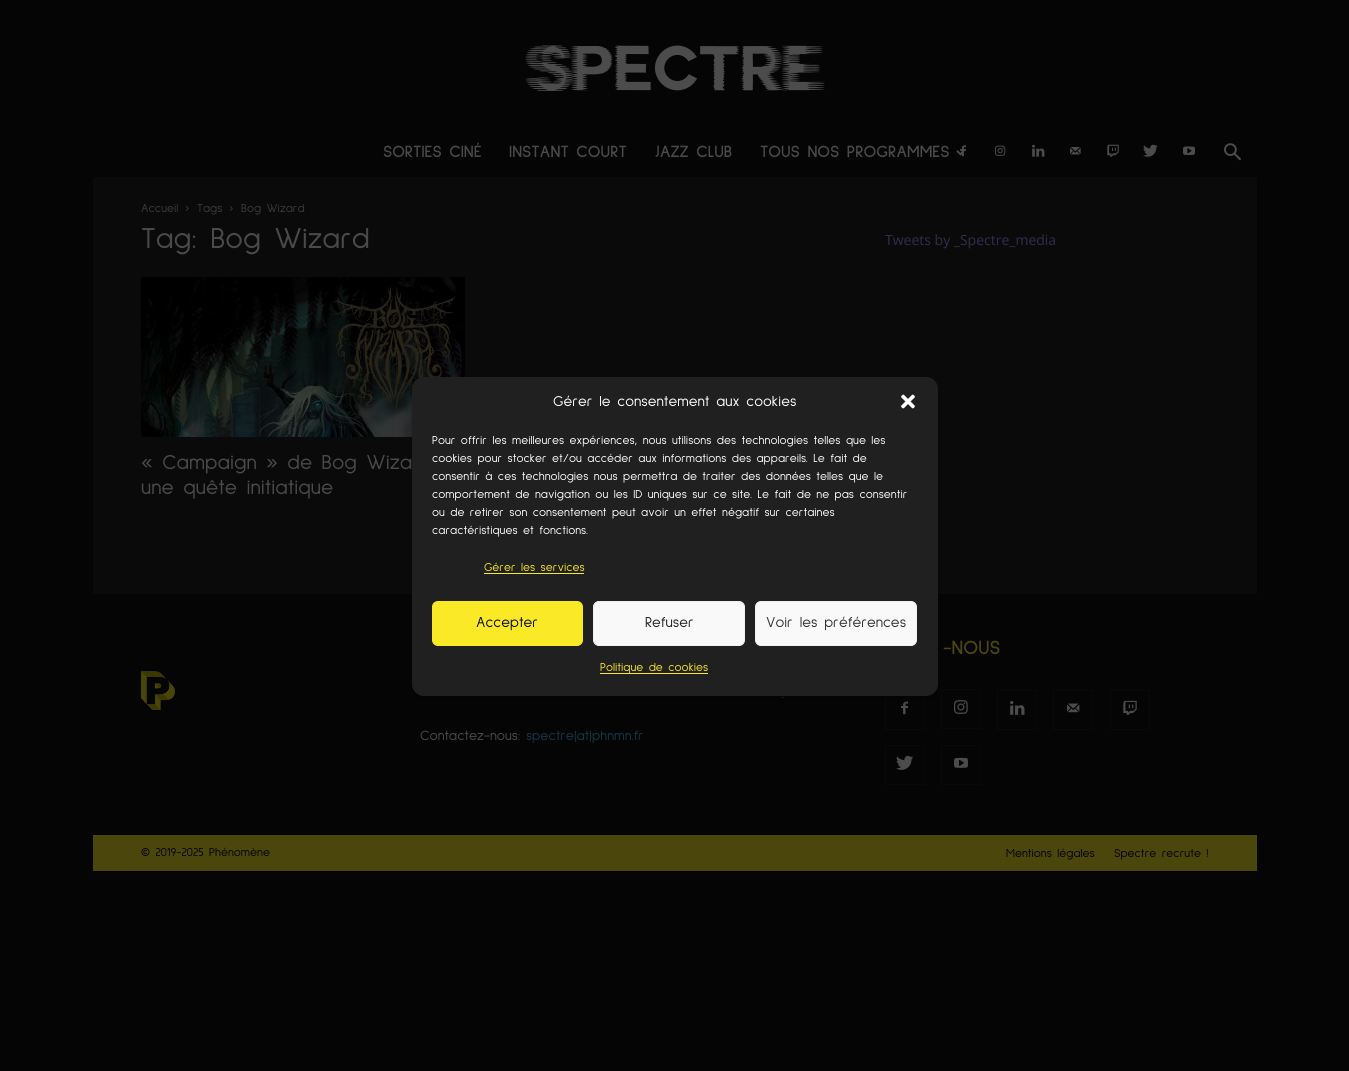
#include <cairo.h>
#include <math.h>
#include <stddef.h>


static void set_color(cairo_t *cr, unsigned color) {
    cairo_set_source_rgb(cr, (color >> 16) / 255.0, (color >> 8 & 255) / 255.0, (color & 255) / 255.0);
}

static void draw_text(cairo_t *cr, double x, double y, const char *s, const char *family, double size, int italic, int bold, unsigned color) {
    cairo_select_font_face(cr, family, italic ? CAIRO_FONT_SLANT_ITALIC : CAIRO_FONT_SLANT_NORMAL,
        bold ? CAIRO_FONT_WEIGHT_BOLD : CAIRO_FONT_WEIGHT_NORMAL);
    cairo_set_font_size(cr, size);
    set_color(cr, color);
    cairo_move_to(cr, x, y);
    cairo_show_text(cr, s);
}

static void fill_rect(cairo_t *cr, double x, double y, double w, double h, unsigned color) {
    set_color(cr, color);
    cairo_rectangle(cr, x, y, w, h);
    cairo_fill(cr);
}

static void rounded_rect(cairo_t *cr, double x, double y, double w, double h, double r) {
    cairo_new_sub_path(cr);
    cairo_arc(cr, x + w - r, y + h - r, r, 0, M_PI / 2);
    cairo_arc(cr, x + r, y + h - r, r, M_PI / 2, M_PI);
    cairo_arc(cr, x + r, y + r, r, M_PI, 1.5 * M_PI);
    cairo_arc(cr, x + w - r, y + r, r, 1.5 * M_PI, 2 * M_PI);
    cairo_close_path(cr);
}

static void draw_shadow(cairo_t *cr, double x, double y, double w, double h, double r, double blur, double alpha) {
    cairo_push_group_with_content(cr, CAIRO_CONTENT_ALPHA);
    cairo_set_operator(cr, CAIRO_OPERATOR_SOURCE);
    for (int i = 15; i >= -15 && fmin(w, h) + blur * i / 3 > 0; i -= 2) {
        double e = blur * i / 6;
        cairo_set_source_rgba(cr, 0, 0, 0, alpha * erfc((i - 1) / 8.5) / 2);
        rounded_rect(cr, x - e, y - e, w + 2 * e, h + 2 * e, fmax(0, fmin(r + e + blur * .6, fmin(w, h) / 2 + e)));
        cairo_fill(cr);
    }
    cairo_pattern_t *soft = cairo_pop_group(cr);
    cairo_mask(cr, soft);
    cairo_pattern_destroy(soft);
}

static void draw_image(cairo_t *cr, const char *path, double x, double y, double w, double h) {
    cairo_surface_t *image = cairo_image_surface_create_from_png(path);
    cairo_save(cr);
    cairo_set_source_surface(cr, image, x, y);
    cairo_rectangle(cr, x, y, w, h);
    cairo_fill(cr);
    cairo_restore(cr);
    cairo_surface_destroy(image);
}

int main(void) {
    cairo_surface_t *surface = cairo_image_surface_create(CAIRO_FORMAT_RGB24, 1349, 1071);
    cairo_t *cr = cairo_create(surface);
    cairo_font_options_t *options = cairo_font_options_create();
    cairo_font_options_set_hint_metrics(options, CAIRO_HINT_METRICS_OFF);
    cairo_font_options_set_hint_style(options, CAIRO_HINT_STYLE_NONE);
    cairo_set_font_options(cr, options);
    cairo_set_miter_limit(cr, 4);
    set_color(cr, 0x050505);
    cairo_paint(cr);
    draw_image(cr, "assets/img1.png", 525, 45, 300, 46);
    draw_text(cr, 383, 157, "SORTIES CINÉ", "Sulphur Point", 17, 0, 1, 0x4A4A4A);
    draw_text(cr, 509, 157, "INSTANT COURT", "Sulphur Point", 17, 0, 1, 0x4A4A4A);
    draw_text(cr, 655, 157, "JAZZ CLUB", "Sulphur Point", 17, 0, 1, 0x4A4A4A);
    draw_text(cr, 760, 157, "TOUS NOS PROGRAMMES", "Sulphur Point", 17, 0, 1, 0x4A4A4A);
    draw_image(cr, "assets/img2.png", 956, 150, 9, 6);
    draw_image(cr, "assets/img3.png", 960, 145, 6, 12);
    draw_image(cr, "assets/img4.png", 995, 145, 11, 11);
    draw_image(cr, "assets/img5.png", 1032, 144, 13, 13);
    draw_image(cr, "assets/img6.png", 1070, 147, 11, 8);
    draw_image(cr, "assets/img7.png", 1107, 144, 12, 13);
    draw_image(cr, "assets/img8.png", 1143, 144, 15, 13);
    draw_image(cr, "assets/img9.png", 1183, 146, 12, 9);
    draw_image(cr, "assets/img10.png", 1224, 143, 17, 18);
    fill_rect(cr, 93, 177, 1164, 417, 0x0A0A0A);
    draw_text(cr, 141, 212, "Accueil", "Sulphur Point", 12, 0, 0, 0x3B3B3B);
    draw_image(cr, "assets/img11.png", 186, 206, 3, 5);
    draw_text(cr, 197, 212, "Tags", "Sulphur Point", 12, 0, 0, 0x3B3B3B);
    draw_image(cr, "assets/img11.png", 230, 206, 3, 5);
    draw_text(cr, 241, 212, "Bog Wizard", "Sulphur Point", 12, 0, 0, 0x3B3B3B);
    draw_text(cr, 141, 248, "Tag: Bog Wizard", "Sulphur Point", 30, 0, 0, 0x4A4A4A);
    draw_image(cr, "assets/img12.png", 141, 277, 324, 160);
    draw_text(cr, 141, 469, "« Campaign » de Bog Wiza", "Sulphur Point", 21, 0, 0, 0x4A4A4A);
    draw_text(cr, 141, 494, "une quête initiatique", "Sulphur Point", 21, 0, 0, 0x4A4A4A);
    draw_text(cr, 885, 245, "Tweets by _Spectre_media", "Open Sans", 14, 0, 0, 0x2D2F4D);
    draw_text(cr, 943, 654, "-NOUS", "Sulphur Point", 20, 0, 1, 0x4B460B);
    draw_image(cr, "assets/img13.png", 901, 701, 7, 14);
    cairo_rectangle(cr, 885.5, 690.5, 39, 39);
    set_color(cr, 0x090909);
    cairo_set_line_width(cr, 1);
    cairo_stroke(cr);
    draw_image(cr, "assets/img14.png", 954, 700, 14, 14);
    cairo_rectangle(cr, 941.5, 689.5, 39, 39);
    cairo_stroke(cr);
    draw_image(cr, "assets/img15.png", 1010, 701, 15, 14);
    cairo_rectangle(cr, 997.5, 690.5, 39, 39);
    cairo_stroke(cr);
    draw_image(cr, "assets/img16.png", 1067, 703, 13, 10);
    cairo_rectangle(cr, 1053.5, 690.5, 39, 39);
    cairo_stroke(cr);
    draw_image(cr, "assets/img17.png", 1123, 700, 14, 15);
    cairo_rectangle(cr, 1110.5, 690.5, 39, 39);
    cairo_stroke(cr);
    draw_image(cr, "assets/img18.png", 896, 755, 18, 15);
    cairo_rectangle(cr, 885.5, 745.5, 39, 39);
    cairo_stroke(cr);
    draw_image(cr, "assets/img19.png", 954, 757, 14, 11);
    cairo_rectangle(cr, 941.5, 745.5, 39, 39);
    cairo_stroke(cr);
    draw_image(cr, "assets/img20.png", 141, 671, 34, 39);
    draw_text(cr, 782, 698, ".", "Sulphur Point", 14, 0, 0, 0x4A4A4A);
    draw_text(cr, 420, 740, "Contactez-nous:", "Sulphur Point", 14, 0, 0, 0x4A4A4A);
    draw_text(cr, 526, 740, "spectre(at)phnmn.fr", "Sulphur Point", 14, 0, 0, 0x173546);
    fill_rect(cr, 93, 835, 1164, 36, 0x4B460B);
    draw_text(cr, 141, 856, "© 2019-2025 Phénomène", "Sulphur Point", 12, 0, 0, 0x030303);
    draw_text(cr, 1006, 857, "Mentions légales", "Sulphur Point", 12, 0, 0, 0x030303);
    draw_text(cr, 1114, 857, "Spectre recrute !", "Sulphur Point", 12, 0, 0, 0x030303);
    set_color(cr, 0x000000);
    draw_shadow(cr, 412, 383, 526, 319, 12, 3, 0.23);
    set_color(cr, 0x202020);
    rounded_rect(cr, 412, 377, 526, 319, 12);
    cairo_fill(cr);
    draw_text(cr, 553, 406, "Gérer le consentement aux cookies", "Sulphur Point", 15, 0, 0, 0xFFFFFF);
    draw_image(cr, "assets/img21.png", 901, 394, 14, 15);
    draw_text(cr, 432, 444, "Pour offrir les meilleures expériences, nous utilisons des technologies telles que les", "Sulphur Point", 12, 0, 0, 0xFFFFFF);
    draw_text(cr, 432, 462, "cookies pour stocker et/ou accéder aux informations des appareils. Le fait de", "Sulphur Point", 12, 0, 0, 0xFFFFFF);
    draw_text(cr, 432, 480, "consentir à ces technologies nous permettra de traiter des données telles que le", "Sulphur Point", 12, 0, 0, 0xFFFFFF);
    draw_text(cr, 432, 498, "comportement de navigation ou les ID uniques sur ce site. Le fait de ne pas consentir", "Sulphur Point", 12, 0, 0, 0xFFFFFF);
    draw_text(cr, 432, 516, "ou de retirer son consentement peut avoir un effet négatif sur certaines", "Sulphur Point", 12, 0, 0, 0xFFFFFF);
    draw_text(cr, 432, 534, "caractéristiques et fonctions.", "Sulphur Point", 12, 0, 0, 0xFFFFFF);
    draw_text(cr, 484, 571, "Gérer les services", "Sulphur Point", 12, 0, 0, 0xFAE926);
    fill_rect(cr, 484, 573, 100, 1, 0xFAE926);
    rounded_rect(cr, 432.5, 601.5, 150, 44, 5.5);
    cairo_fill_preserve(cr);
    cairo_stroke(cr);
    draw_text(cr, 476, 627, "Accepter", "Sulphur Point", 15, 0, 0, 0x0A0A0A);
    set_color(cr, 0xF9F9F9);
    rounded_rect(cr, 593.5, 601.5, 151, 44, 5.5);
    cairo_fill_preserve(cr);
    set_color(cr, 0xF2F2F2);
    cairo_stroke(cr);
    draw_text(cr, 645, 627, "Refuser", "Sulphur Point", 15, 0, 0, 0x222222);
    set_color(cr, 0xF9F9F9);
    rounded_rect(cr, 755.5, 601.5, 161, 44, 5.5);
    cairo_fill_preserve(cr);
    set_color(cr, 0xF2F2F2);
    cairo_stroke(cr);
    draw_text(cr, 766, 627, "Voir les préférences", "Sulphur Point", 15, 0, 0, 0x333333);
    fill_rect(cr, 600, 673, 108, 1, 0xFAE926);
    draw_text(cr, 600, 671, "Politique de cookies", "Sulphur Point", 12, 0, 0, 0xFAE926);
    cairo_surface_write_to_png(surface, "output.png");
    cairo_font_options_destroy(options);
    cairo_destroy(cr);
    cairo_surface_destroy(surface);
    return 0;
}
